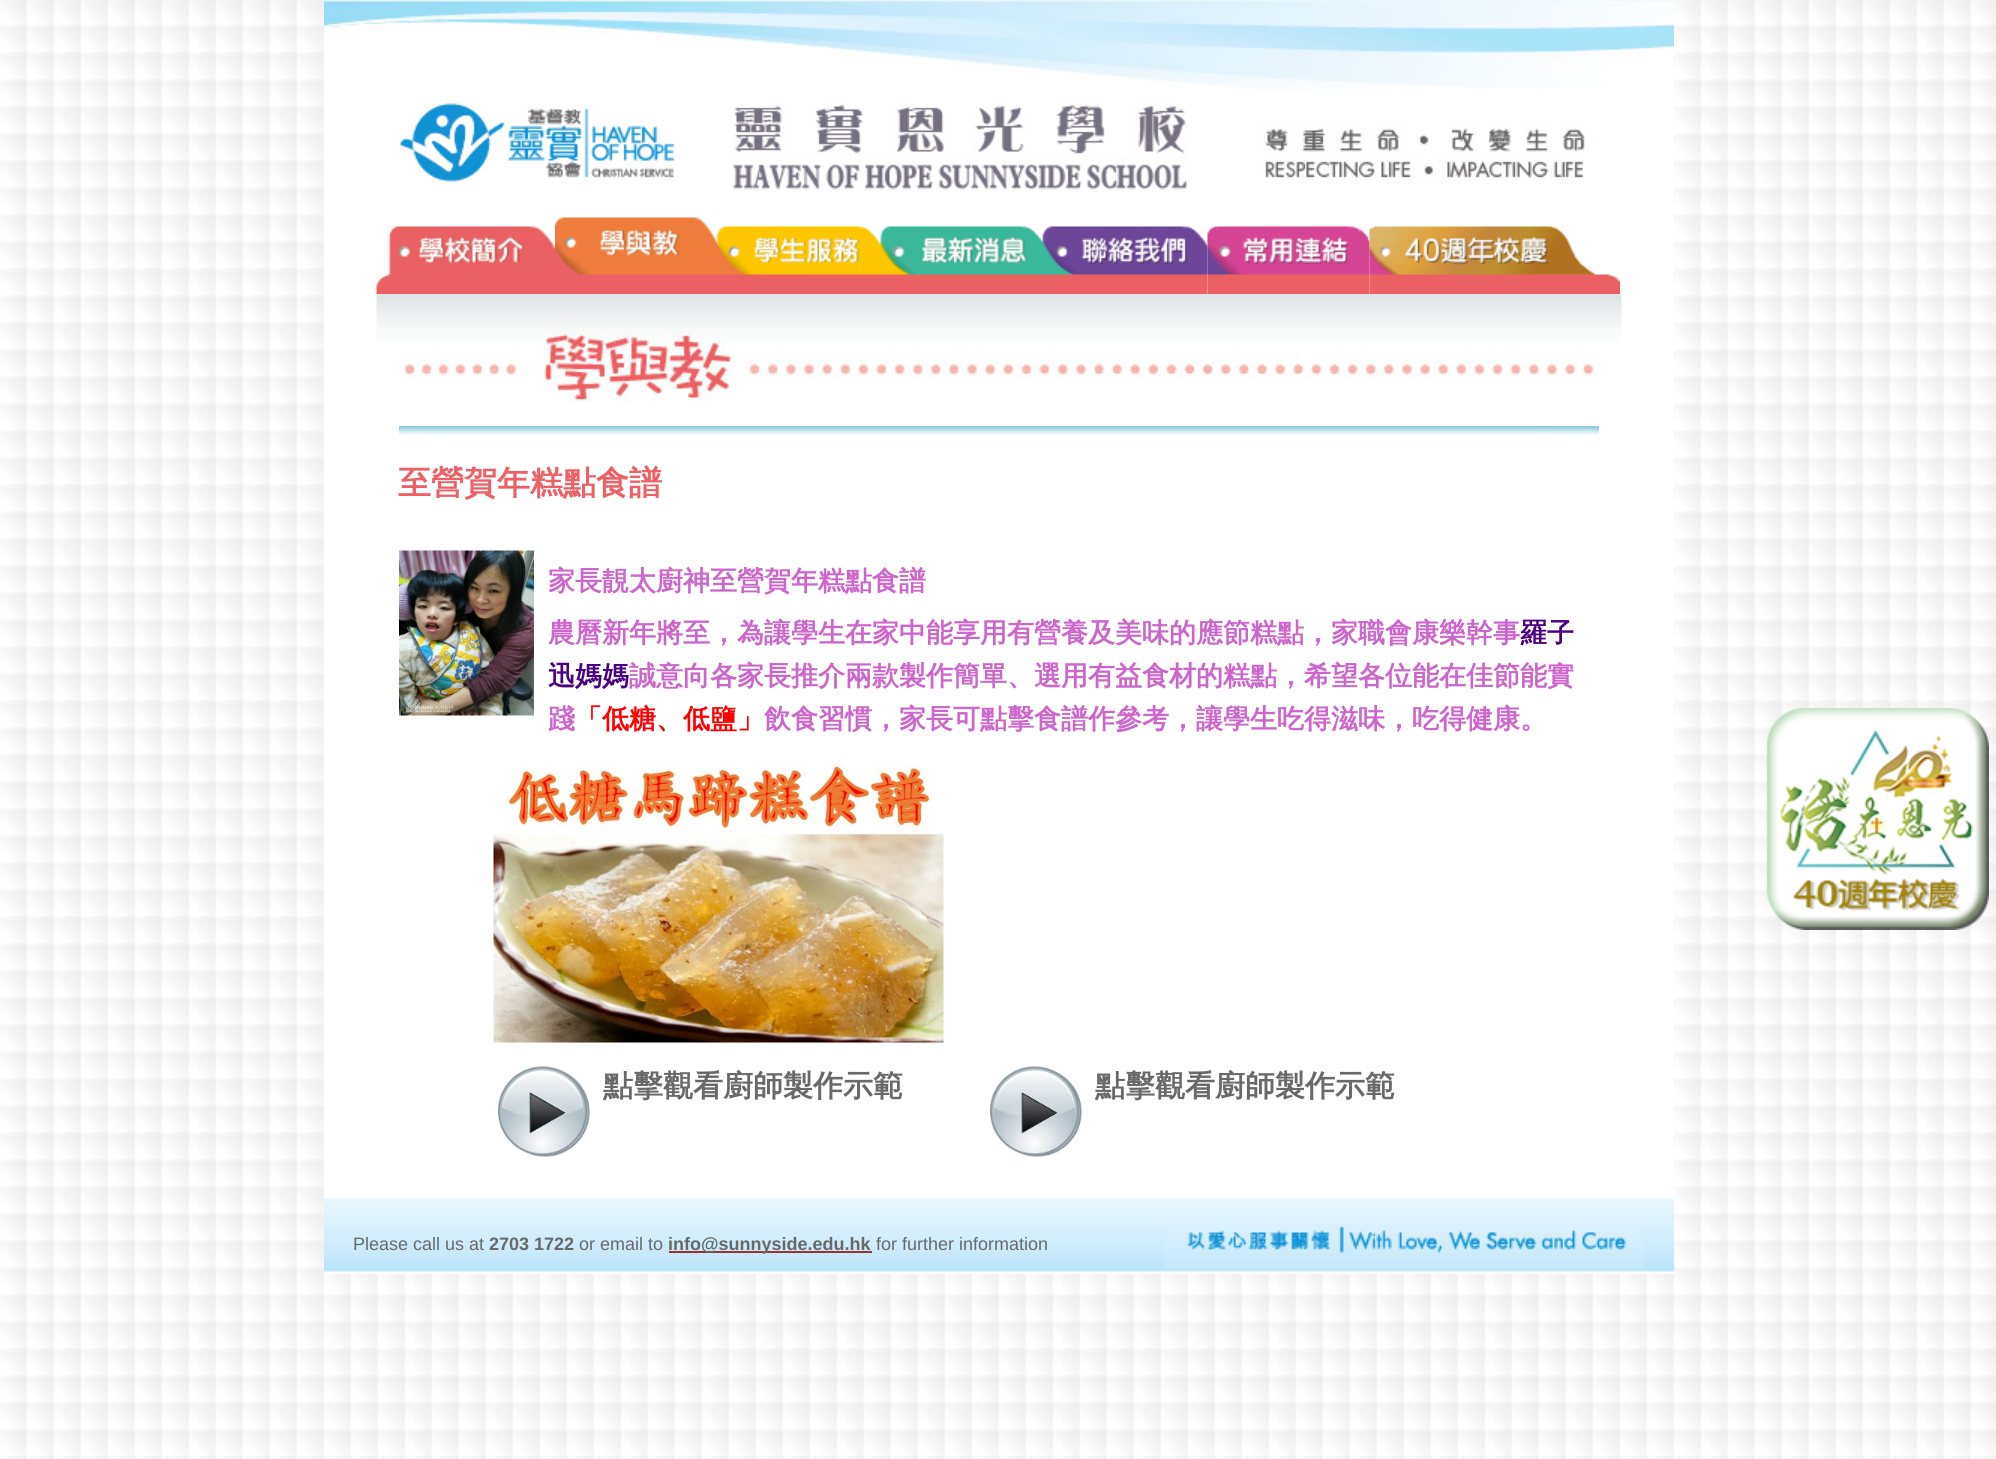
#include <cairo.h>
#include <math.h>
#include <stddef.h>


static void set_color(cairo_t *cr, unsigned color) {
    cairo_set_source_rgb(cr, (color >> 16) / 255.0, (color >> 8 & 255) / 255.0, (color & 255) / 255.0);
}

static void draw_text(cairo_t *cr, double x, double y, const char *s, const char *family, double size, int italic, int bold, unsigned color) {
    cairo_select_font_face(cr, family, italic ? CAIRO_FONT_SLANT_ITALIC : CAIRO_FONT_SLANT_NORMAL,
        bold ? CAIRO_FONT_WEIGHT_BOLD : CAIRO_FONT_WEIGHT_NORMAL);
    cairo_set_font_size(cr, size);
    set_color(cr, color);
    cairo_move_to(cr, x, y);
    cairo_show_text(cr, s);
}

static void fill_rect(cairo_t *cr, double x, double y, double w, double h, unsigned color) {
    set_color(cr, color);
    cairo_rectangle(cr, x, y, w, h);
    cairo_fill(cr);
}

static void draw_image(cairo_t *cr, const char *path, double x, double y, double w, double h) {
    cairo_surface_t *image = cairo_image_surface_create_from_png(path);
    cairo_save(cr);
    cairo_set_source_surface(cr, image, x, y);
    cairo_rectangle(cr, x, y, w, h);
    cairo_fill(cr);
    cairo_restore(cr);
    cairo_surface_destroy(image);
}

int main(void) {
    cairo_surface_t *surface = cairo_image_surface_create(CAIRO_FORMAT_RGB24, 1996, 1459);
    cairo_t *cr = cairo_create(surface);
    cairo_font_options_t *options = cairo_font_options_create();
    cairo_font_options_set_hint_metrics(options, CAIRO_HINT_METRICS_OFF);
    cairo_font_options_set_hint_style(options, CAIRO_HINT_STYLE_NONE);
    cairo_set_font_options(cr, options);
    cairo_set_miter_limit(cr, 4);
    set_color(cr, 0xFFFFFF);
    cairo_paint(cr);
    draw_image(cr, "assets/img1.png", 0, 0, 1996, 1459);
    fill_rect(cr, 324, 192, 1350, 1007, 0xFFFFFF);
    draw_image(cr, "assets/img2.png", 324, 0, 1350, 192);
    draw_image(cr, "assets/img3.png", 400, 103, 276, 79);
    draw_image(cr, "assets/img4.png", 376, 226, 179, 68);
    draw_image(cr, "assets/img5.png", 555, 217, 162, 77);
    draw_image(cr, "assets/img6.png", 717, 226, 162, 68);
    draw_image(cr, "assets/img7.png", 879, 226, 162, 68);
    draw_image(cr, "assets/img8.png", 1041, 226, 167, 68);
    draw_image(cr, "assets/img9.png", 1207, 226, 163, 68);
    draw_image(cr, "assets/img10.png", 1369, 226, 251, 68);
    draw_image(cr, "assets/img11.png", 376, 294, 1246, 108);
    draw_image(cr, "assets/img12.png", 399, 426, 1200, 9);
    draw_text(cr, 398, 494, "至營賀年糕點食譜", "WenQuanYi Zen Hei", 33, 0, 1, 0xEC6164);
    draw_image(cr, "assets/img13.png", 399, 550, 135, 166);
    draw_text(cr, 548, 590, "家長靚太廚神至營賀年糕點食譜", "WenQuanYi Zen Hei", 27, 0, 1, 0xCC66CC);
    draw_text(cr, 548, 642, "農曆新年將至，為讓學生在家中能享用有營養及美味的應節糕點，家職會康樂幹事", "WenQuanYi Zen Hei", 27, 0, 1, 0xCC66CC);
    draw_text(cr, 1520, 642, "羅子", "WenQuanYi Zen Hei", 27, 0, 1, 0x4B0082);
    draw_text(cr, 548, 685, "迅媽媽", "WenQuanYi Zen Hei", 27, 0, 1, 0x4B0082);
    draw_text(cr, 629, 685, "誠意向各家長推介兩款製作簡單、選用有益食材的糕點，希望各位能在佳節能實", "WenQuanYi Zen Hei", 27, 0, 1, 0xCC66CC);
    draw_text(cr, 548, 728, "踐", "WenQuanYi Zen Hei", 27, 0, 1, 0xCC66CC);
    draw_text(cr, 575, 728, "「低糖、低鹽」", "WenQuanYi Zen Hei", 27, 0, 1, 0xFF0000);
    draw_text(cr, 764, 728, "飲食習慣，家長可點擊食譜作參考，讓學生吃得滋味，吃得健康。", "WenQuanYi Zen Hei", 27, 0, 1, 0xCC66CC);
    draw_image(cr, "assets/img14.png", 493, 763, 451, 280);
    draw_image(cr, "assets/img15.png", 498, 1066, 92, 91);
    draw_text(cr, 603, 1096, "點擊觀看廚師製作示範", "WenQuanYi Zen Hei", 30, 0, 1, 0x696969);
    draw_image(cr, "assets/img15.png", 990, 1066, 92, 91);
    draw_text(cr, 1095, 1096, "點擊觀看廚師製作示範", "WenQuanYi Zen Hei", 30, 0, 1, 0x696969);
    draw_image(cr, "assets/img16.png", 1766, 707, 223, 223);
    fill_rect(cr, 324, 1272, 1350, 2, 0xFFFFFF);
    draw_image(cr, "assets/img17.png", 324, 1198, 1350, 74);
    draw_text(cr, 353, 1250, "Please call us at", "Liberation Sans", 18, 0, 0, 0x696969);
    draw_text(cr, 489, 1250, "2703 1722", "Liberation Sans", 18, 0, 1, 0x696969);
    draw_text(cr, 579, 1250, "or email to", "Liberation Sans", 18, 0, 0, 0x696969);
    fill_rect(cr, 669, 1251, 203, 2, 0x993333);
    draw_text(cr, 668, 1250, "info@sunnyside.edu.hk", "Liberation Sans", 18, 0, 1, 0x696969);
    draw_text(cr, 876, 1250, "for further information", "Liberation Sans", 18, 0, 0, 0x696969);
    draw_image(cr, "assets/img18.png", 1164, 1225, 480, 44);
    cairo_surface_write_to_png(surface, "output.png");
    cairo_font_options_destroy(options);
    cairo_destroy(cr);
    cairo_surface_destroy(surface);
    return 0;
}
